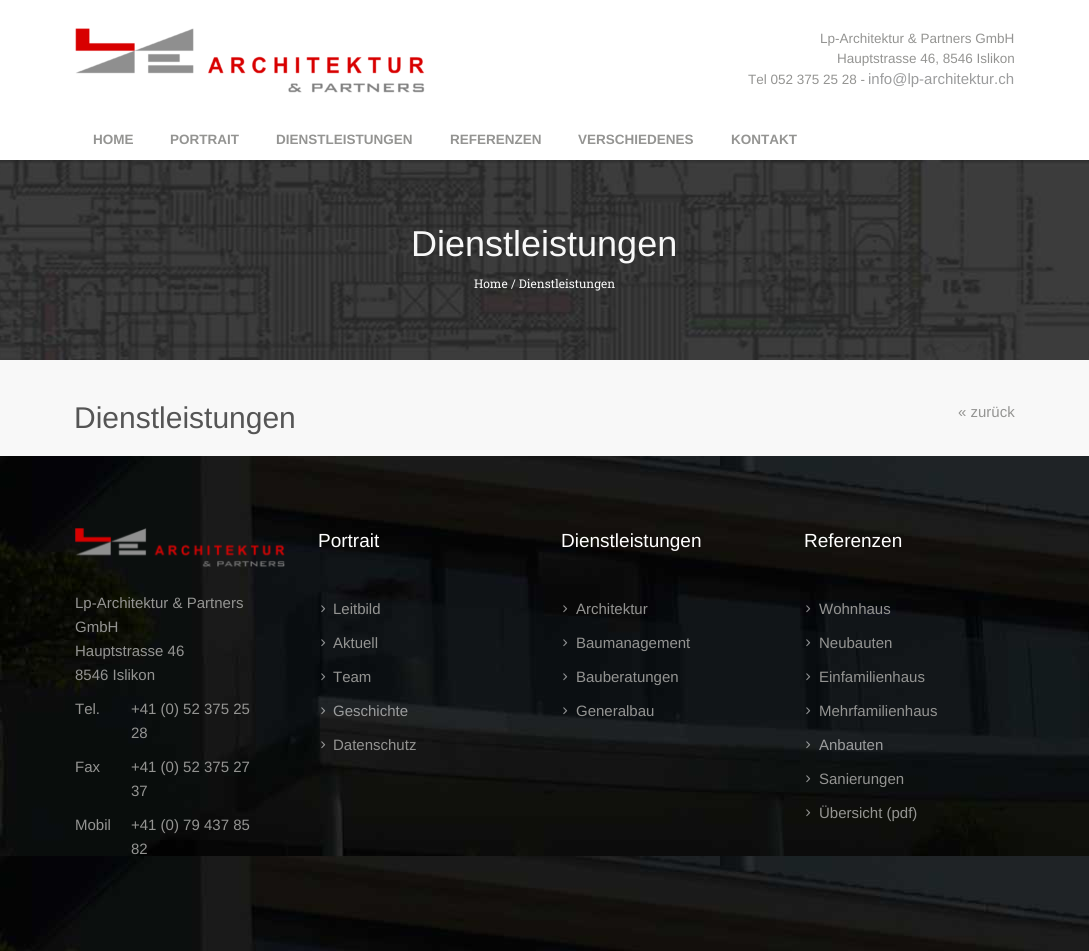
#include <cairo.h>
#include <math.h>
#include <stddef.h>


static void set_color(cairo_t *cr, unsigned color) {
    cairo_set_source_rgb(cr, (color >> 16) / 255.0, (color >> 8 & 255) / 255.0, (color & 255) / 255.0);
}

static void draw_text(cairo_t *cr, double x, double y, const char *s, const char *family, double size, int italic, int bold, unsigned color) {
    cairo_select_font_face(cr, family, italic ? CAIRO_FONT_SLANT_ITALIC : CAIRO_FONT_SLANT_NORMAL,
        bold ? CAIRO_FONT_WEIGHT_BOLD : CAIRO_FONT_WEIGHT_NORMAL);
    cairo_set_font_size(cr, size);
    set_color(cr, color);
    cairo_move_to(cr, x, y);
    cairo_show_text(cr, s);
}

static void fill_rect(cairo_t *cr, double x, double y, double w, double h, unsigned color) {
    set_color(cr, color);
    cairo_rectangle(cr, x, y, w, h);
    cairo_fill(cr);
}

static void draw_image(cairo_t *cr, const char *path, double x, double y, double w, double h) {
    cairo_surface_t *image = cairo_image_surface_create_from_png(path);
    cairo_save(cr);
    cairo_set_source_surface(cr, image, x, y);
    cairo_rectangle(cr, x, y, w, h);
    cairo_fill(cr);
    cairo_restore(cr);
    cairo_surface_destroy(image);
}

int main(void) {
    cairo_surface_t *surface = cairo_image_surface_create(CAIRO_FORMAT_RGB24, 1089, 951);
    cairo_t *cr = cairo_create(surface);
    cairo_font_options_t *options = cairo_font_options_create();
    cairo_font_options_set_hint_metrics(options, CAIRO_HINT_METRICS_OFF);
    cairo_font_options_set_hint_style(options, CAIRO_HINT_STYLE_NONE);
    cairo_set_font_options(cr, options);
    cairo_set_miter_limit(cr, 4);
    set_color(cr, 0xF8F8F8);
    cairo_paint(cr);
    fill_rect(cr, 0, 0, 1089, 160, 0xFFFFFF);
    draw_image(cr, "assets/img1.png", 75, 28, 350, 65);
    draw_text(cr, 820, 43, "Lp-Architektur & Partners GmbH", "Liberation Sans", 13.5, 0, 0, 0x949492);
    draw_text(cr, 837, 63, "Hauptstrasse 46, 8546 Islikon", "Liberation Sans", 13.5, 0, 0, 0x949492);
    draw_text(cr, 748, 84, "Tel 052 375 25 28 -", "Liberation Sans", 13.5, 0, 0, 0x949492);
    draw_text(cr, 868, 84, "info@lp-architektur.ch", "Liberation Sans", 15, 0, 0, 0x9B9C9D);
    draw_text(cr, 93, 144, "HOME", "Liberation Sans", 13.5, 0, 1, 0x949492);
    draw_text(cr, 170, 144, "PORTRAIT", "Liberation Sans", 13.5, 0, 1, 0x949492);
    draw_text(cr, 276, 144, "DIENSTLEISTUNGEN", "Liberation Sans", 13.5, 0, 1, 0x949492);
    draw_text(cr, 450, 144, "REFERENZEN", "Liberation Sans", 13.5, 0, 1, 0x949492);
    draw_text(cr, 578, 144, "VERSCHIEDENES", "Liberation Sans", 13.5, 0, 1, 0x949492);
    draw_text(cr, 731, 144, "KONTAKT", "Liberation Sans", 13.5, 0, 1, 0x949492);
    draw_image(cr, "assets/img2.png", 0, 160, 1089, 200);
    draw_text(cr, 411, 256, "Dienstleistungen", "Liberation Sans", 36, 0, 0, 0xF8F8F8);
    draw_text(cr, 474, 288, "Home", "Roboto Slab", 12, 0, 0, 0xF8F8F8);
    draw_text(cr, 511, 288, "/ Dienstleistungen", "Roboto Slab", 12, 0, 0, 0xF8F8F8);
    draw_text(cr, 74, 428, "Dienstleistungen", "Liberation Sans", 30, 0, 0, 0x555555);
    draw_text(cr, 958, 417, "« zurück", "Liberation Sans", 15, 0, 0, 0x949492);
    draw_image(cr, "assets/img3.png", 0, 456, 1089, 495);
    draw_image(cr, "assets/img4.png", 75, 528, 210, 39);
    draw_text(cr, 75, 608, "Lp-Architektur & Partners", "Liberation Sans", 15, 0, 0, 0x949492);
    draw_text(cr, 75, 632, "GmbH", "Liberation Sans", 15, 0, 0, 0x949492);
    draw_text(cr, 75, 656, "Hauptstrasse 46", "Liberation Sans", 15, 0, 0, 0x949492);
    draw_text(cr, 75, 680, "8546 Islikon", "Liberation Sans", 15, 0, 0, 0x949492);
    draw_text(cr, 75, 714, "Tel.", "Liberation Sans", 15, 0, 0, 0x949492);
    draw_text(cr, 131, 714, "+41 (0) 52 375 25", "Liberation Sans", 15, 0, 0, 0x949492);
    draw_text(cr, 131, 738, "28", "Liberation Sans", 15, 0, 0, 0x949492);
    draw_text(cr, 75, 772, "Fax", "Liberation Sans", 15, 0, 0, 0x949492);
    draw_text(cr, 131, 772, "+41 (0) 52 375 27", "Liberation Sans", 15, 0, 0, 0x949492);
    draw_text(cr, 131, 796, "37", "Liberation Sans", 15, 0, 0, 0x949492);
    draw_text(cr, 75, 830, "Mobil", "Liberation Sans", 15, 0, 0, 0x949492);
    draw_text(cr, 131, 830, "+41 (0) 79 437 85", "Liberation Sans", 15, 0, 0, 0x949492);
    draw_text(cr, 131, 854, "82", "Liberation Sans", 15, 0, 0, 0x949492);
    draw_text(cr, 318, 547, "Portrait", "Liberation Sans", 19, 0, 0, 0xFFFFFF);
    draw_image(cr, "assets/img5.png", 321, 605, 5, 8);
    draw_text(cr, 333, 614, "Leitbild", "Liberation Sans", 15, 0, 0, 0x949492);
    draw_image(cr, "assets/img6.png", 321, 639, 5, 8);
    draw_text(cr, 333, 648, "Aktuell", "Liberation Sans", 15, 0, 0, 0x949492);
    draw_image(cr, "assets/img7.png", 321, 673, 5, 8);
    draw_text(cr, 333, 682, "Team", "Liberation Sans", 15, 0, 0, 0x949492);
    draw_image(cr, "assets/img8.png", 321, 707, 5, 8);
    draw_text(cr, 333, 716, "Geschichte", "Liberation Sans", 15, 0, 0, 0x9B9C9D);
    draw_image(cr, "assets/img9.png", 321, 741, 5, 8);
    draw_text(cr, 333, 750, "Datenschutz", "Liberation Sans", 15, 0, 0, 0x949492);
    draw_text(cr, 561, 547, "Dienstleistungen", "Liberation Sans", 19, 0, 0, 0xFFFFFF);
    draw_image(cr, "assets/img10.png", 563, 605, 5, 8);
    draw_text(cr, 576, 614, "Architektur", "Liberation Sans", 15, 0, 0, 0x949492);
    draw_image(cr, "assets/img11.png", 563, 639, 5, 8);
    draw_text(cr, 576, 648, "Baumanagement", "Liberation Sans", 15, 0, 0, 0x949492);
    draw_image(cr, "assets/img11.png", 563, 673, 5, 8);
    draw_text(cr, 576, 682, "Bauberatungen", "Liberation Sans", 15, 0, 0, 0x949492);
    draw_image(cr, "assets/img12.png", 563, 707, 5, 8);
    draw_text(cr, 576, 716, "Generalbau", "Liberation Sans", 15, 0, 0, 0x949492);
    draw_text(cr, 804, 547, "Referenzen", "Liberation Sans", 19, 0, 0, 0xFFFFFF);
    draw_image(cr, "assets/img13.png", 806, 605, 5, 8);
    draw_text(cr, 819, 614, "Wohnhaus", "Liberation Sans", 15, 0, 0, 0x949492);
    draw_image(cr, "assets/img14.png", 806, 639, 5, 8);
    draw_text(cr, 819, 648, "Neubauten", "Liberation Sans", 15, 0, 0, 0x949492);
    draw_image(cr, "assets/img15.png", 806, 673, 5, 8);
    draw_text(cr, 819, 682, "Einfamilienhaus", "Liberation Sans", 15, 0, 0, 0x949492);
    draw_image(cr, "assets/img16.png", 806, 707, 5, 8);
    draw_text(cr, 819, 716, "Mehrfamilienhaus", "Liberation Sans", 15, 0, 0, 0x949492);
    draw_image(cr, "assets/img17.png", 806, 741, 5, 8);
    draw_text(cr, 819, 750, "Anbauten", "Liberation Sans", 15, 0, 0, 0x9B9C9D);
    draw_image(cr, "assets/img18.png", 806, 775, 5, 8);
    draw_text(cr, 819, 784, "Sanierungen", "Liberation Sans", 15, 0, 0, 0x949492);
    draw_image(cr, "assets/img19.png", 806, 809, 5, 8);
    draw_text(cr, 819, 818, "Übersicht (pdf)", "Liberation Sans", 15, 0, 0, 0x949492);
    cairo_surface_write_to_png(surface, "output.png");
    cairo_font_options_destroy(options);
    cairo_destroy(cr);
    cairo_surface_destroy(surface);
    return 0;
}
